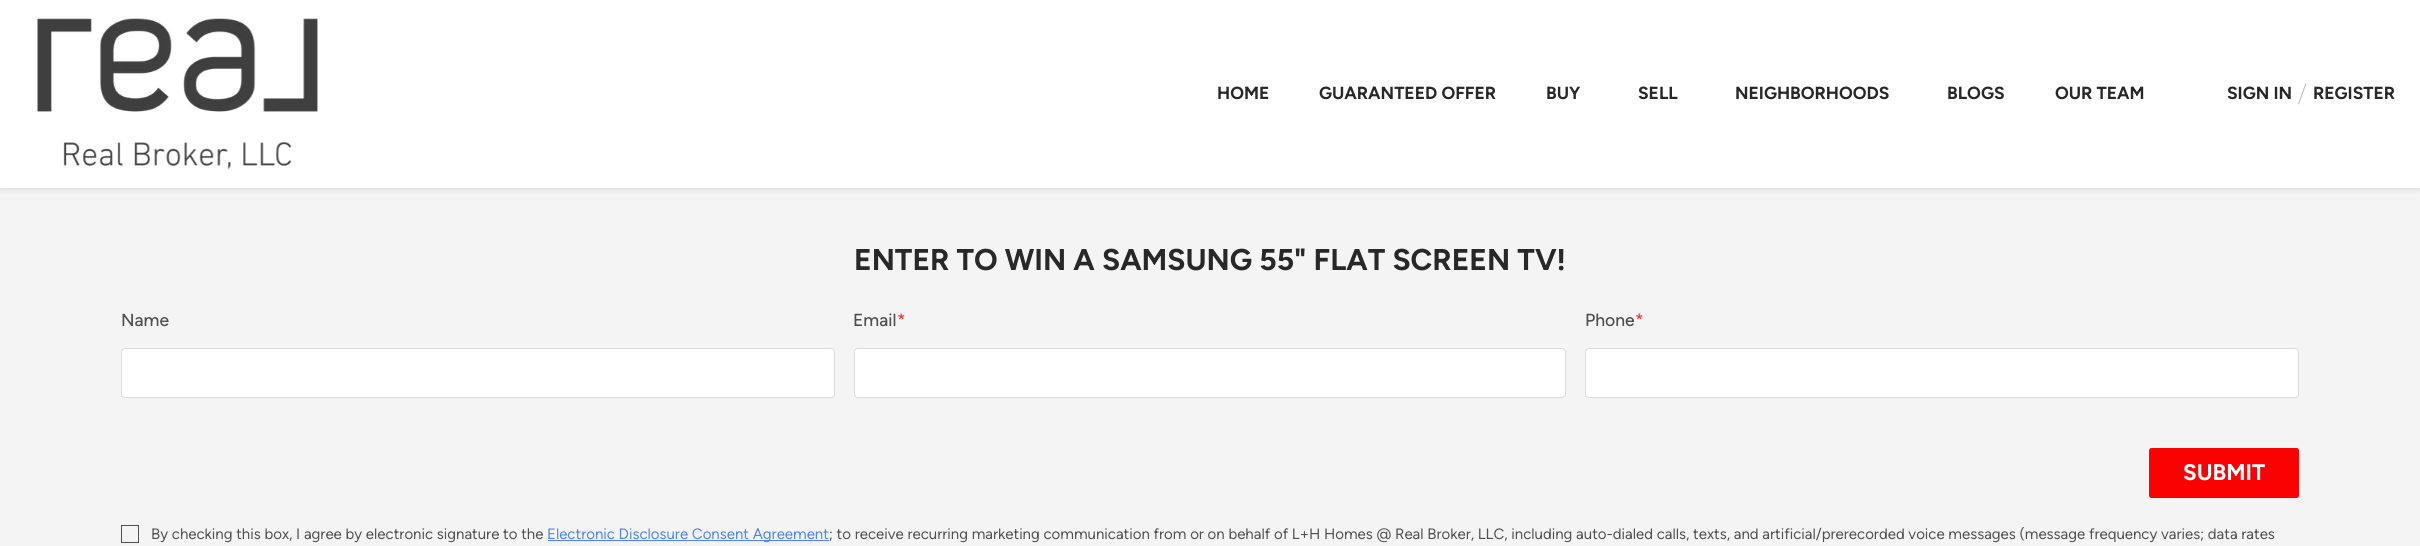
#include <cairo.h>
#include <math.h>
#include <stddef.h>


static void set_color(cairo_t *cr, unsigned color) {
    cairo_set_source_rgb(cr, (color >> 16) / 255.0, (color >> 8 & 255) / 255.0, (color & 255) / 255.0);
}

static void draw_text(cairo_t *cr, double x, double y, const char *s, const char *family, double size, int italic, int bold, unsigned color) {
    cairo_select_font_face(cr, family, italic ? CAIRO_FONT_SLANT_ITALIC : CAIRO_FONT_SLANT_NORMAL,
        bold ? CAIRO_FONT_WEIGHT_BOLD : CAIRO_FONT_WEIGHT_NORMAL);
    cairo_set_font_size(cr, size);
    set_color(cr, color);
    cairo_move_to(cr, x, y);
    cairo_show_text(cr, s);
}

static void fill_rect(cairo_t *cr, double x, double y, double w, double h, unsigned color) {
    set_color(cr, color);
    cairo_rectangle(cr, x, y, w, h);
    cairo_fill(cr);
}

static void rounded_rect(cairo_t *cr, double x, double y, double w, double h, double r) {
    cairo_new_sub_path(cr);
    cairo_arc(cr, x + w - r, y + h - r, r, 0, M_PI / 2);
    cairo_arc(cr, x + r, y + h - r, r, M_PI / 2, M_PI);
    cairo_arc(cr, x + r, y + r, r, M_PI, 1.5 * M_PI);
    cairo_arc(cr, x + w - r, y + r, r, 1.5 * M_PI, 2 * M_PI);
    cairo_close_path(cr);
}

static void draw_shadow(cairo_t *cr, double x, double y, double w, double h, double r, double blur, double alpha) {
    cairo_push_group_with_content(cr, CAIRO_CONTENT_ALPHA);
    cairo_set_operator(cr, CAIRO_OPERATOR_SOURCE);
    for (int i = 15; i >= -15 && fmin(w, h) + blur * i / 3 > 0; i -= 2) {
        double e = blur * i / 6;
        cairo_set_source_rgba(cr, 0, 0, 0, alpha * erfc((i - 1) / 8.5) / 2);
        rounded_rect(cr, x - e, y - e, w + 2 * e, h + 2 * e, fmax(0, fmin(r + e + blur * .6, fmin(w, h) / 2 + e)));
        cairo_fill(cr);
    }
    cairo_pattern_t *soft = cairo_pop_group(cr);
    cairo_mask(cr, soft);
    cairo_pattern_destroy(soft);
}

static void draw_image(cairo_t *cr, const char *path, double x, double y, double w, double h) {
    cairo_surface_t *image = cairo_image_surface_create_from_png(path);
    cairo_save(cr);
    cairo_set_source_surface(cr, image, x, y);
    cairo_rectangle(cr, x, y, w, h);
    cairo_fill(cr);
    cairo_restore(cr);
    cairo_surface_destroy(image);
}

int main(void) {
    cairo_surface_t *surface = cairo_image_surface_create(CAIRO_FORMAT_RGB24, 2420, 546);
    cairo_t *cr = cairo_create(surface);
    cairo_font_options_t *options = cairo_font_options_create();
    cairo_font_options_set_hint_metrics(options, CAIRO_HINT_METRICS_OFF);
    cairo_font_options_set_hint_style(options, CAIRO_HINT_STYLE_NONE);
    cairo_set_font_options(cr, options);
    cairo_set_miter_limit(cr, 4);
    set_color(cr, 0xF4F4F4);
    cairo_paint(cr);
    set_color(cr, 0x000000);
    draw_shadow(cr, 0, 3, 2420, 187, 0, 2.5, 0.1);
    fill_rect(cr, 0, 0, 2420, 188, 0xFFFFFF);
    draw_image(cr, "assets/img1.png", 37, 18, 281, 151);
    draw_text(cr, 1217, 99, "HOME", "Figtree", 17.5, 0, 1, 0x282828);
    draw_text(cr, 1319, 99, "GUARANTEED OFFER", "Figtree", 17.5, 0, 1, 0x282828);
    draw_text(cr, 1546, 99, "BUY", "Figtree", 17.5, 0, 1, 0x282828);
    draw_text(cr, 1638, 99, "SELL", "Figtree", 17.5, 0, 1, 0x282828);
    draw_text(cr, 1735, 99, "NEIGHBORHOODS", "Figtree", 17.5, 0, 1, 0x282828);
    draw_text(cr, 1947, 99, "BLOGS", "Figtree", 17.5, 0, 1, 0x282828);
    draw_text(cr, 2055, 99, "OUR TEAM", "Figtree", 17.5, 0, 1, 0x282828);
    draw_text(cr, 2227, 99, "SIGN IN", "Figtree", 17.5, 0, 1, 0x282828);
    set_color(cr, 0xBFBFBF);
    cairo_new_path(cr);
    cairo_move_to(cr, 2305.5, 83);
    cairo_line_to(cr, 2306.5, 83.5);
    cairo_line_to(cr, 2299, 104.5);
    cairo_line_to(cr, 2298, 104);
    cairo_close_path(cr);
    cairo_fill(cr);
    draw_text(cr, 2313, 99, "REGISTER", "Figtree", 17.5, 0, 1, 0x282828);
    draw_text(cr, 854, 270, "ENTER TO WIN A SAMSUNG 55\" FLAT SCREEN TV!", "Figtree", 30, 0, 1, 0x282828);
    draw_text(cr, 121, 326, "Name", "Figtree Medium", 17.5, 0, 0, 0x505050);
    set_color(cr, 0xFFFFFF);
    rounded_rect(cr, 121.5, 348.5, 713, 49, 3.5);
    cairo_fill_preserve(cr);
    set_color(cr, 0xDCDCDC);
    cairo_set_line_width(cr, 1);
    cairo_stroke(cr);
    draw_text(cr, 853, 326, "Email", "Figtree Medium", 17.5, 0, 0, 0x505050);
    draw_text(cr, 897, 326, "*", "Figtree Medium", 17.5, 0, 0, 0xF33535);
    set_color(cr, 0xFFFFFF);
    rounded_rect(cr, 854.5, 348.5, 711, 49, 3.5);
    cairo_fill_preserve(cr);
    set_color(cr, 0xDCDCDC);
    cairo_stroke(cr);
    draw_text(cr, 1585, 326, "Phone", "Figtree Medium", 17.5, 0, 0, 0x505050);
    draw_text(cr, 1635, 326, "*", "Figtree Medium", 17.5, 0, 0, 0xF33535);
    set_color(cr, 0xFFFFFF);
    rounded_rect(cr, 1585.5, 348.5, 713, 49, 3.5);
    cairo_fill_preserve(cr);
    set_color(cr, 0xDCDCDC);
    cairo_stroke(cr);
    set_color(cr, 0xFB0202);
    rounded_rect(cr, 2149, 448, 150, 50, 2.5);
    cairo_fill(cr);
    draw_text(cr, 2183, 480, "SUBMIT", "Figtree", 22.5, 0, 1, 0xFFFFFF);
    cairo_rectangle(cr, 121.5, 525.5, 17, 17);
    set_color(cr, 0x505050);
    cairo_stroke(cr);
    draw_text(cr, 151, 539, "By checking this box, I agree by electronic signature to the", "Figtree", 15, 0, 0, 0x505050);
    fill_rect(cr, 548, 540, 281, 1, 0x4C84FF);
    draw_text(cr, 547, 539, "Electronic Disclosure Consent Agreement", "Figtree", 15, 0, 0, 0x4C84FF);
    draw_text(cr, 829, 539, "; to receive recurring marketing communication from or on behalf of L+H Homes @ Real Broker, LLC, including auto-dialed calls, texts, and artificial/prerecorded voice messages (message frequency varies; data rates", "Figtree", 15, 0, 0, 0x505050);
    cairo_surface_write_to_png(surface, "output.png");
    cairo_font_options_destroy(options);
    cairo_destroy(cr);
    cairo_surface_destroy(surface);
    return 0;
}
